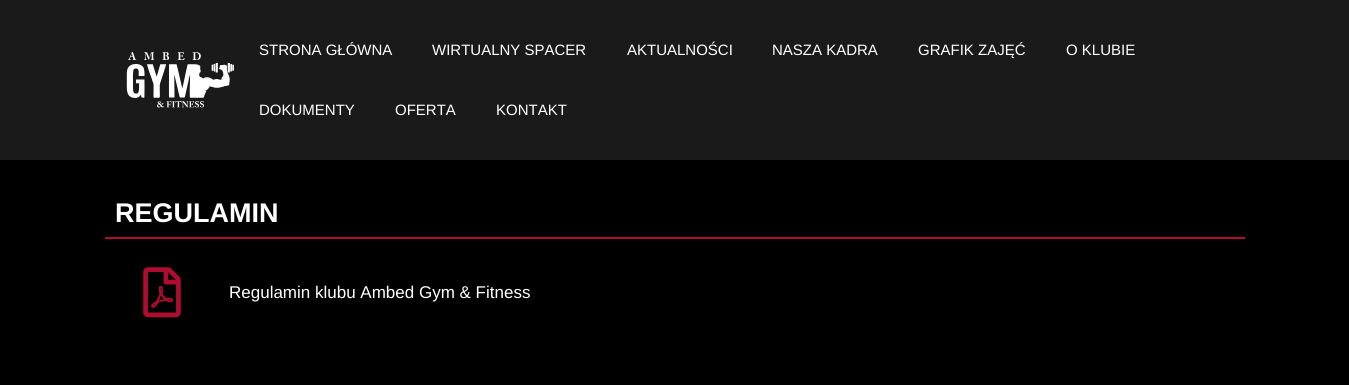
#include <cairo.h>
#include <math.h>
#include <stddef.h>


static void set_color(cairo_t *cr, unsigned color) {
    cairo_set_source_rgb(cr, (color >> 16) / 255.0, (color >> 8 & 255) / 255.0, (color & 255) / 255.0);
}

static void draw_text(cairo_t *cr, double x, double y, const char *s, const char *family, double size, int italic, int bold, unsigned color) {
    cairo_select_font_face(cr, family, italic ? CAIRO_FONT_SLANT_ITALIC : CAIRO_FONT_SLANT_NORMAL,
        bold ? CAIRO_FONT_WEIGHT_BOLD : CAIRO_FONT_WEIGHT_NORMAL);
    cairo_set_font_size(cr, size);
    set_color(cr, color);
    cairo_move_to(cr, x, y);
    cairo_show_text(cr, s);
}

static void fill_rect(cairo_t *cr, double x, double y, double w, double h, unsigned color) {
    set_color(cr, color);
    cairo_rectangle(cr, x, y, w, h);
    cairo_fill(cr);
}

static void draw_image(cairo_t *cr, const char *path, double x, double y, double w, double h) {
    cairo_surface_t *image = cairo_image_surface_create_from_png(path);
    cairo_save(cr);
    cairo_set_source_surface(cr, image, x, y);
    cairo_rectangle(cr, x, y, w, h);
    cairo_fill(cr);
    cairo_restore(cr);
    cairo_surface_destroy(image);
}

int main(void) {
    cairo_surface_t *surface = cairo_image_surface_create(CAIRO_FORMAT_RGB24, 1349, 385);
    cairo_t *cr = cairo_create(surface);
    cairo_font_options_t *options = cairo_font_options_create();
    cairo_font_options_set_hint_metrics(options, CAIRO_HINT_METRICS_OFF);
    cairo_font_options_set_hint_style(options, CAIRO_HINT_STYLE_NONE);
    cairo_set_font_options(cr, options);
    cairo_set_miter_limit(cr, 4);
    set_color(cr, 0x1A1A1A);
    cairo_paint(cr);
    draw_image(cr, "assets/img1.png", 126, 52, 108, 56);
    draw_text(cr, 259, 55, "STRONA GŁÓWNA", "Liberation Sans", 15, 0, 0, 0xFFFFFF);
    draw_text(cr, 432, 55, "WIRTUALNY SPACER", "Liberation Sans", 15, 0, 0, 0xFFFFFF);
    draw_text(cr, 627, 55, "AKTUALNOŚCI", "Liberation Sans", 15, 0, 0, 0xFFFFFF);
    draw_text(cr, 772, 55, "NASZA KADRA", "Liberation Sans", 15, 0, 0, 0xFFFFFF);
    draw_text(cr, 918, 55, "GRAFIK ZAJĘĆ", "Liberation Sans", 15, 0, 0, 0xFFFFFF);
    draw_text(cr, 1066, 55, "O KLUBIE", "Liberation Sans", 15, 0, 0, 0xFFFFFF);
    draw_text(cr, 259, 115, "DOKUMENTY", "Liberation Sans", 15, 0, 0, 0xFFFFFF);
    draw_text(cr, 395, 115, "OFERTA", "Liberation Sans", 15, 0, 0, 0xFFFFFF);
    draw_text(cr, 496, 115, "KONTAKT", "Liberation Sans", 15, 0, 0, 0xFFFFFF);
    fill_rect(cr, 0, 160, 1349, 225, 0x000000);
    draw_text(cr, 115, 222, "REGULAMIN", "Liberation Sans", 27, 0, 1, 0xFFFFFF);
    fill_rect(cr, 105, 237, 1140, 2, 0xAF0D30);
    draw_image(cr, "assets/img2.png", 143, 267, 38, 51);
    draw_text(cr, 229, 298, "Regulamin klubu Ambed Gym & Fitness", "Liberation Sans", 17, 0, 0, 0xFFFFFF);
    cairo_surface_write_to_png(surface, "output.png");
    cairo_font_options_destroy(options);
    cairo_destroy(cr);
    cairo_surface_destroy(surface);
    return 0;
}
